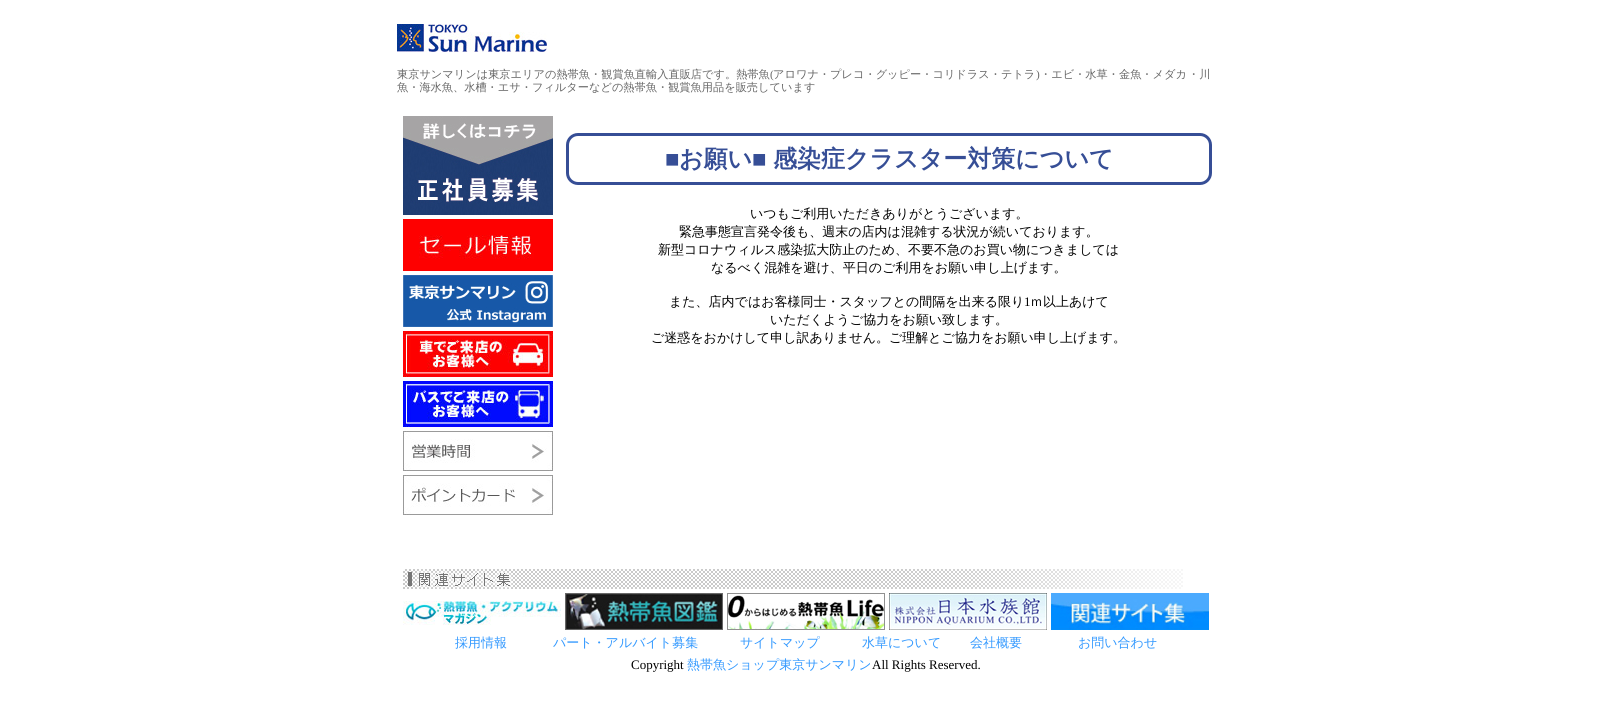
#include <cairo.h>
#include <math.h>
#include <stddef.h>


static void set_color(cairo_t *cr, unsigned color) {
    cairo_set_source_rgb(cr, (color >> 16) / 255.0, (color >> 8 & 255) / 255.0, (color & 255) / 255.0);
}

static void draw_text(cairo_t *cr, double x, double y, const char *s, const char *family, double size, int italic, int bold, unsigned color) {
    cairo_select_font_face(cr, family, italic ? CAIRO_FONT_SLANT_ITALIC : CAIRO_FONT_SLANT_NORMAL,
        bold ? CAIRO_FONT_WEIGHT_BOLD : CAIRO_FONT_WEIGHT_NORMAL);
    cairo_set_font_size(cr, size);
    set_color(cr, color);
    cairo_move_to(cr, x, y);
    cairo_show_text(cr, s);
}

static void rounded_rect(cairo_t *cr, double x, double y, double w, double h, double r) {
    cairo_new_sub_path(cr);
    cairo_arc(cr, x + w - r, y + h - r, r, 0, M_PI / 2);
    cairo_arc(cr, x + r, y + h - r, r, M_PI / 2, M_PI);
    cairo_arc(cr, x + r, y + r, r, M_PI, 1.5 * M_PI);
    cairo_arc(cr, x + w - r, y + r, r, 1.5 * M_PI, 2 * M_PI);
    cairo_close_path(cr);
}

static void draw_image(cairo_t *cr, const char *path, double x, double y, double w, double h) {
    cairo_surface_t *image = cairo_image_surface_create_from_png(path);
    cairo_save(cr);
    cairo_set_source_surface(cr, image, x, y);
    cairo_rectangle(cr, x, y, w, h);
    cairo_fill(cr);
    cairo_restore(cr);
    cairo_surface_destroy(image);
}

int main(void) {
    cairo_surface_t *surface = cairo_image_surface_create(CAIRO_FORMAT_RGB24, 1612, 714);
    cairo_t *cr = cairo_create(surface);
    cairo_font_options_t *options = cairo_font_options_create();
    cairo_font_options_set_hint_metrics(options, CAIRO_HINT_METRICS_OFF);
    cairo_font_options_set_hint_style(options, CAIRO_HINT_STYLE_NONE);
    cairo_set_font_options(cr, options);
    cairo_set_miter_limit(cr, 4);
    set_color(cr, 0xFFFFFF);
    cairo_paint(cr);
    draw_image(cr, "assets/img1.png", 397, 24, 150, 28);
    draw_text(cr, 397, 78, "東京サンマリンは東京エリアの熱帯魚・観賞魚直輸入直販店です。熱帯魚", "WenQuanYi Zen Hei Medium", 11.2, 0, 0, 0x666666);
    draw_text(cr, 770, 78, "(", "Liberation Serif", 11.2, 0, 0, 0x666666);
    draw_text(cr, 773, 78, "アロワナ・プレコ・グッピー・コリドラス・テトラ", "WenQuanYi Zen Hei Medium", 11.2, 0, 0, 0x666666);
    draw_text(cr, 1036, 78, ")", "Liberation Serif", 11.2, 0, 0, 0x666666);
    draw_text(cr, 1040, 78, "・エビ・水草・金魚・メダカ", "WenQuanYi Zen Hei Medium", 11.2, 0, 0, 0x666666);
    draw_text(cr, 1188, 78, "・川", "WenQuanYi Zen Hei Medium", 11.2, 0, 0, 0x666666);
    draw_text(cr, 397, 91, "魚・海水魚、水槽・エサ・フィルターなどの熱帯魚・観賞魚用品を販売しています", "WenQuanYi Zen Hei Medium", 11.2, 0, 0, 0x666666);
    draw_image(cr, "assets/img2.png", 403, 116, 150, 99);
    draw_image(cr, "assets/img3.png", 403, 219, 150, 52);
    draw_image(cr, "assets/img4.png", 403, 275, 150, 52);
    draw_image(cr, "assets/img5.png", 403, 331, 150, 46);
    draw_image(cr, "assets/img6.png", 403, 381, 150, 46);
    draw_image(cr, "assets/img7.png", 403, 431, 150, 40);
    draw_image(cr, "assets/img8.png", 403, 475, 150, 40);
    rounded_rect(cr, 567.5, 134.5, 643, 49, 10.5);
    set_color(cr, 0x364E96);
    cairo_set_line_width(cr, 3);
    cairo_stroke(cr);
    draw_text(cr, 665, 167, "■", "Liberation Serif", 24, 0, 1, 0x364E96);
    draw_text(cr, 679, 167, "お願い", "WenQuanYi Zen Hei", 24, 0, 1, 0x364E96);
    draw_text(cr, 752, 167, "■", "Liberation Serif", 24, 0, 1, 0x364E96);
    draw_text(cr, 773, 167, "感染症クラスター対策について", "WenQuanYi Zen Hei", 24, 0, 1, 0x364E96);
    draw_text(cr, 750, 218, "いつもご利用いただきありがとうございます。", "WenQuanYi Zen Hei Medium", 13, 0, 0, 0x000000);
    draw_text(cr, 679, 236, "緊急事態宣言発令後も、週末の店内は混雑する状況が続いております。", "WenQuanYi Zen Hei Medium", 13, 0, 0, 0x000000);
    draw_text(cr, 658, 254, "新型コロナウィルス感染拡大防止のため、不要不急のお買い物につきましては", "WenQuanYi Zen Hei Medium", 13, 0, 0, 0x000000);
    draw_text(cr, 711, 272, "なるべく混雑を避け、平日のご利用をお願い申し上げます。", "WenQuanYi Zen Hei Medium", 13, 0, 0, 0x000000);
    draw_text(cr, 669, 306, "また、店内ではお客様同士・スタッフとの間隔を出来る限り", "WenQuanYi Zen Hei Medium", 13, 0, 0, 0x000000);
    draw_text(cr, 1024, 306, "1", "Liberation Serif", 13, 0, 0, 0x000000);
    draw_text(cr, 1030, 306, "ｍ以上あけて", "WenQuanYi Zen Hei Medium", 13, 0, 0, 0x000000);
    draw_text(cr, 770, 324, "いただくようご協力をお願い致します。", "WenQuanYi Zen Hei Medium", 13, 0, 0, 0x000000);
    draw_text(cr, 651, 342, "ご迷惑をおかけして申し訳ありません。ご理解とご協力をお願い申し上げます。", "WenQuanYi Zen Hei Medium", 13, 0, 0, 0x000000);
    draw_image(cr, "assets/img9.png", 403, 569, 780, 20);
    draw_image(cr, "assets/img10.png", 403, 601, 158, 24);
    draw_image(cr, "assets/img11.png", 565, 593, 158, 37);
    draw_image(cr, "assets/img12.png", 727, 593, 158, 37);
    draw_image(cr, "assets/img13.png", 889, 593, 158, 37);
    draw_image(cr, "assets/img14.png", 1051, 593, 158, 37);
    draw_text(cr, 455, 647, "採用情報", "WenQuanYi Zen Hei Medium", 13, 0, 0, 0x3399FF);
    draw_text(cr, 553, 647, "パート・アルバイト募集", "WenQuanYi Zen Hei Medium", 13, 0, 0, 0x3399FF);
    draw_text(cr, 740, 647, "サイトマップ", "WenQuanYi Zen Hei Medium", 13, 0, 0, 0x3399FF);
    draw_text(cr, 862, 647, "水草について", "WenQuanYi Zen Hei Medium", 13, 0, 0, 0x3399FF);
    draw_text(cr, 970, 647, "会社概要", "WenQuanYi Zen Hei Medium", 13, 0, 0, 0x3399FF);
    draw_text(cr, 1078, 647, "お問い合わせ", "WenQuanYi Zen Hei Medium", 13, 0, 0, 0x3399FF);
    draw_text(cr, 631, 669, "Copyright", "Liberation Serif", 13, 0, 0, 0x000000);
    draw_text(cr, 687, 669, "熱帯魚ショップ東京サンマリン", "WenQuanYi Zen Hei Medium", 13, 0, 0, 0x3399FF);
    draw_text(cr, 872, 669, "All Rights Reserved.", "Liberation Serif", 13, 0, 0, 0x000000);
    cairo_surface_write_to_png(surface, "output.png");
    cairo_font_options_destroy(options);
    cairo_destroy(cr);
    cairo_surface_destroy(surface);
    return 0;
}
